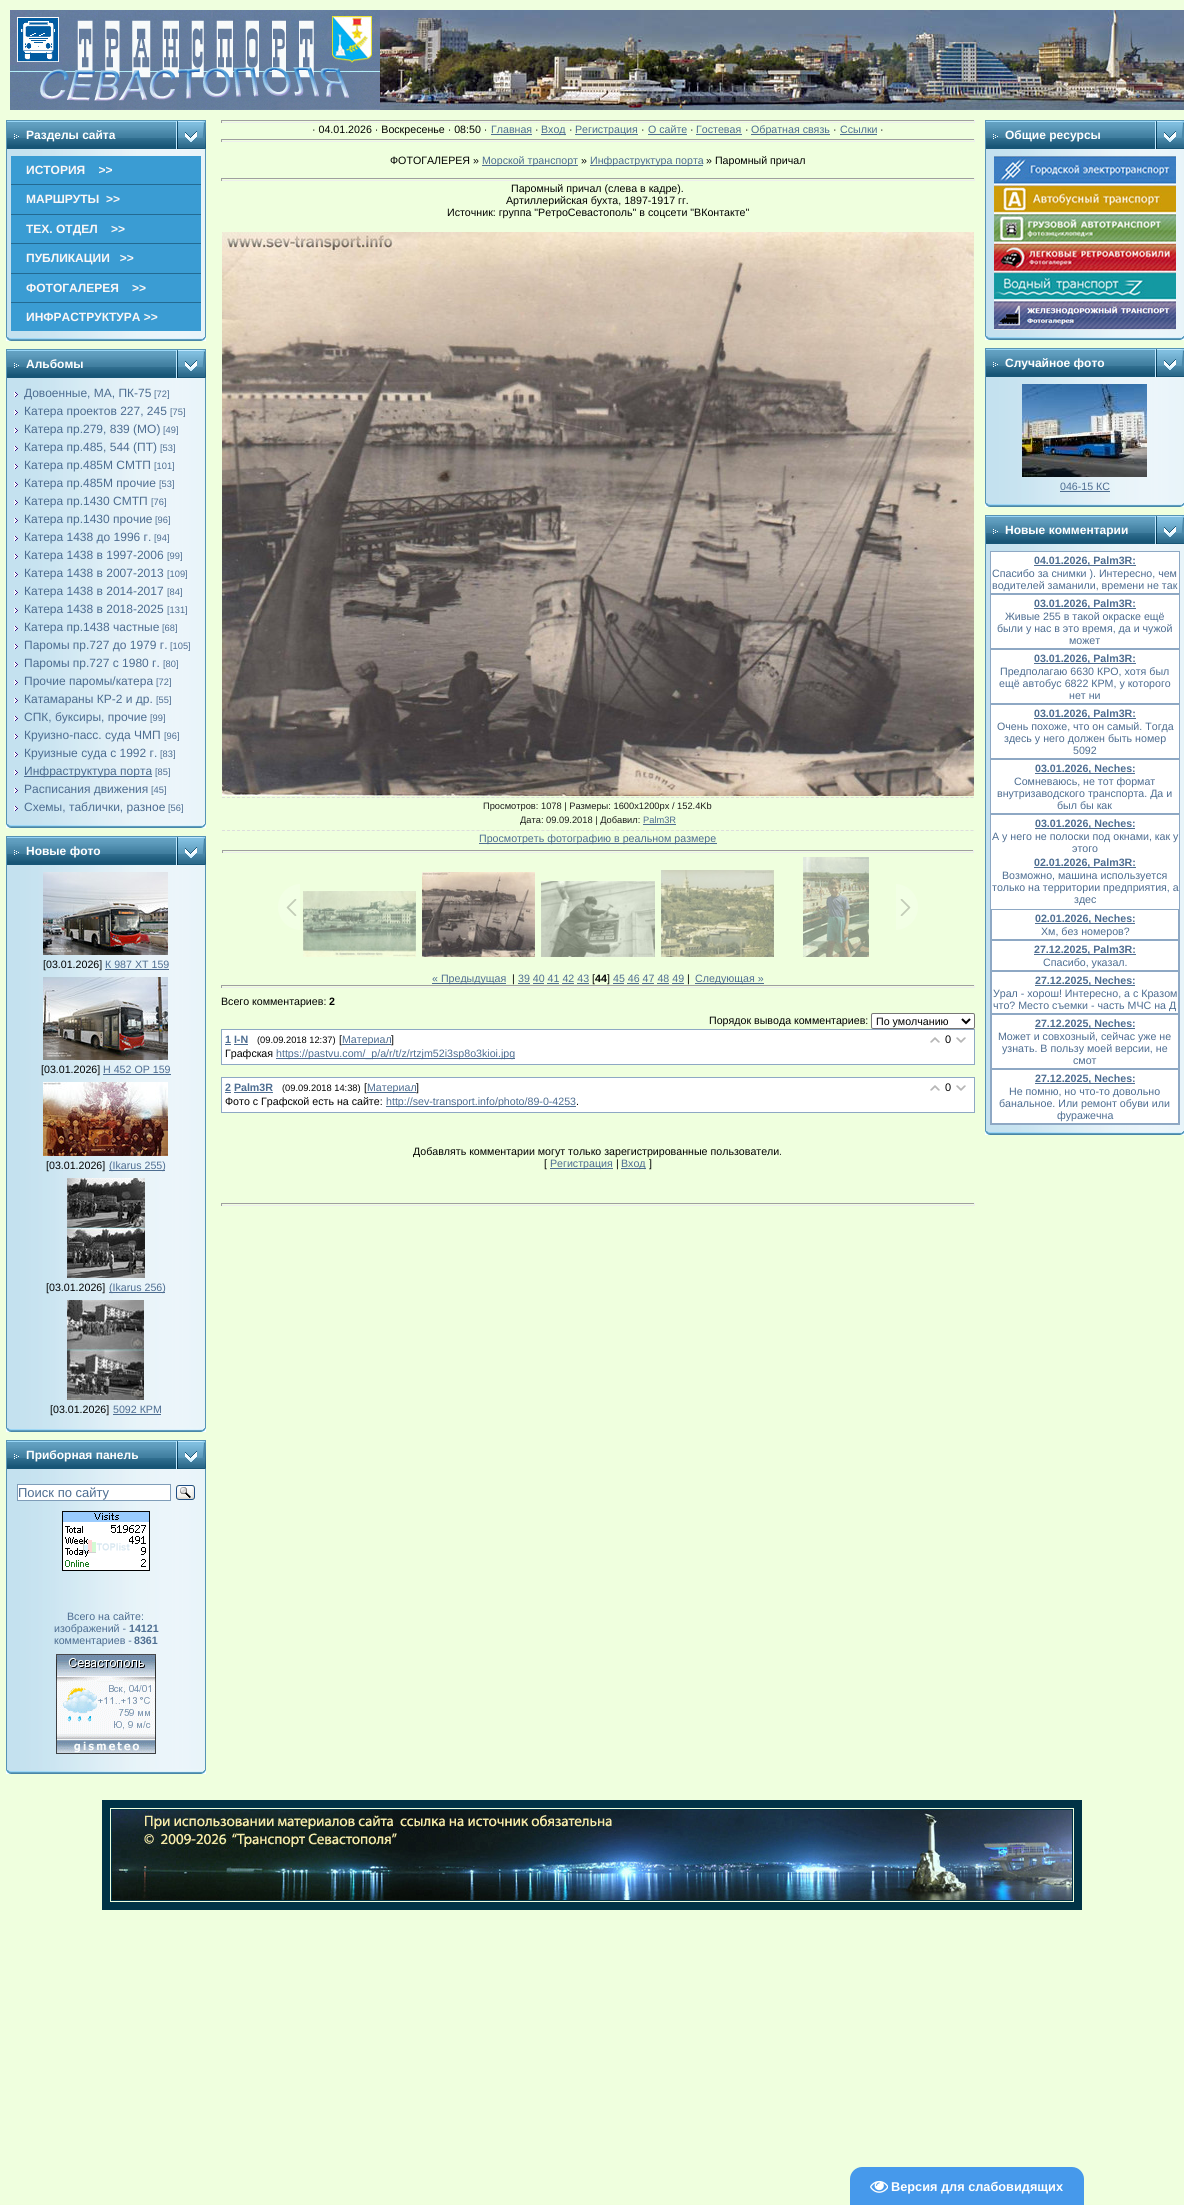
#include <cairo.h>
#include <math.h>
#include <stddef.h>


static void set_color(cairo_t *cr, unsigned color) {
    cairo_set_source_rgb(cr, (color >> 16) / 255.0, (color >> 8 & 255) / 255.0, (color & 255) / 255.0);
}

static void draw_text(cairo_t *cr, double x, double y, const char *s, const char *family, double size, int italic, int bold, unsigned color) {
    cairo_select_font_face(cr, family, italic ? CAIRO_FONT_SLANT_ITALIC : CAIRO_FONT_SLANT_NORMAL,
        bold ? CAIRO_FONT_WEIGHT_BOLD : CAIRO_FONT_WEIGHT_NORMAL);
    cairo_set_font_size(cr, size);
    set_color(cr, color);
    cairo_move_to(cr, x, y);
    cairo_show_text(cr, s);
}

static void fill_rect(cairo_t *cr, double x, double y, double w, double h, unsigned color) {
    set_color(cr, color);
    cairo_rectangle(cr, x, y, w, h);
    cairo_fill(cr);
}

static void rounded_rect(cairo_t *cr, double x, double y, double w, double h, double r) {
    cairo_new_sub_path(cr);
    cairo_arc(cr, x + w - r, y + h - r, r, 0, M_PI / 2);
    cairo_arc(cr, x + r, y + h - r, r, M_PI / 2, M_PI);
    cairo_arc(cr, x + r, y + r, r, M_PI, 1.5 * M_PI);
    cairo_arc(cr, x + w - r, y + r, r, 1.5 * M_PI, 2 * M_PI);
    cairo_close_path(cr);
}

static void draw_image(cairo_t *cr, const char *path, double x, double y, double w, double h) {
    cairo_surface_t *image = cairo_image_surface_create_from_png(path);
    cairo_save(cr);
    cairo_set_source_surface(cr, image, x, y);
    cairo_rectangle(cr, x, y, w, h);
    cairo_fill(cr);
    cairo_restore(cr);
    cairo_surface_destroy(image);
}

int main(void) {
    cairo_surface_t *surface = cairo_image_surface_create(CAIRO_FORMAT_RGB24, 1184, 2205);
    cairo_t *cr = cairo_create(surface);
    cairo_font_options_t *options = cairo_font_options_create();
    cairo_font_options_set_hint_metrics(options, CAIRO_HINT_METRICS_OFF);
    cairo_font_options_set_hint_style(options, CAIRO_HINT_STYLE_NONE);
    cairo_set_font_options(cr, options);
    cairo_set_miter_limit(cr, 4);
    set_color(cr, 0xEFFFDE);
    cairo_paint(cr);
    draw_image(cr, "assets/img1.png", 10, 10, 370, 100);
    draw_image(cr, "assets/img2.png", 380, 10, 804, 100);
    draw_image(cr, "assets/img3.png", 7, 120, 169, 29);
    fill_rect(cr, 6, 120, 1, 29, 0x5694B5);
    draw_image(cr, "assets/img4.png", 14, 134, 5, 5);
    draw_text(cr, 26, 139, "Разделы сайта", "Liberation Sans", 12, 0, 1, 0xFFFFFF);
    draw_image(cr, "assets/img5.png", 176, 120, 30, 1);
    draw_image(cr, "assets/img6.png", 176, 121, 30, 28);
    draw_image(cr, "assets/img7.png", 6, 149, 200, 187);
    fill_rect(cr, 11, 156, 190, 28, 0x3A9CD3);
    draw_text(cr, 26, 174, "ИСТОРИЯ    >>", "Liberation Sans", 12, 0, 1, 0xFBF7F7);
    fill_rect(cr, 11, 185, 190, 29, 0x3A9CD3);
    fill_rect(cr, 11, 184, 190, 1, 0x236A92);
    draw_text(cr, 26, 203, "МАРШРУТЫ  >>", "Liberation Sans", 12, 0, 1, 0xFBF7F7);
    fill_rect(cr, 11, 215, 190, 28, 0x3A9CD3);
    fill_rect(cr, 11, 214, 190, 1, 0x236A92);
    draw_text(cr, 26, 233, "ТЕХ. ОТДЕЛ    >>", "Liberation Sans", 12, 0, 1, 0xFBF7F7);
    fill_rect(cr, 11, 244, 190, 29, 0x3A9CD3);
    fill_rect(cr, 11, 243, 190, 1, 0x236A92);
    draw_text(cr, 26, 262, "ПУБЛИКАЦИИ   >>", "Liberation Sans", 12, 0, 1, 0xFBF7F7);
    fill_rect(cr, 11, 274, 190, 28, 0x3A9CD3);
    fill_rect(cr, 11, 273, 190, 1, 0x236A92);
    draw_text(cr, 26, 292, "ФОТОГАЛЕРЕЯ    >>", "Liberation Sans", 12, 0, 1, 0xFBF7F7);
    fill_rect(cr, 11, 303, 190, 28, 0x3A9CD3);
    fill_rect(cr, 11, 302, 190, 1, 0x236A92);
    draw_text(cr, 26, 321, "ИНФРАСТРУКТУРА >>", "Liberation Sans", 12, 0, 1, 0xFBF7F7);
    draw_image(cr, "assets/img8.png", 6, 336, 200, 5);
    draw_image(cr, "assets/img3.png", 7, 349, 169, 29);
    fill_rect(cr, 6, 349, 1, 29, 0x5694B5);
    draw_image(cr, "assets/img4.png", 14, 363, 5, 5);
    draw_text(cr, 26, 368, "Альбомы", "Liberation Sans", 12, 0, 1, 0xFFFFFF);
    draw_image(cr, "assets/img5.png", 176, 349, 30, 1);
    draw_image(cr, "assets/img6.png", 176, 350, 30, 28);
    draw_image(cr, "assets/img9.png", 6, 378, 200, 445);
    draw_image(cr, "assets/img10.png", 14, 392, 4, 5);
    draw_text(cr, 24, 397, "Довоенные, МА, ПК-75", "Liberation Sans", 12, 0, 0, 0x4D6D91);
    draw_text(cr, 154, 397, "[72]", "Liberation Sans", 9.3, 0, 0, 0x4D6D91);
    draw_image(cr, "assets/img10.png", 14, 410, 4, 5);
    draw_text(cr, 24, 415, "Катера проектов 227, 245", "Liberation Sans", 12, 0, 0, 0x4D6D91);
    draw_text(cr, 170, 415, "[75]", "Liberation Sans", 9.3, 0, 0, 0x4D6D91);
    draw_image(cr, "assets/img10.png", 14, 428, 4, 5);
    draw_text(cr, 24, 433, "Катера пр.279, 839 (МО)", "Liberation Sans", 12, 0, 0, 0x4D6D91);
    draw_text(cr, 163, 433, "[49]", "Liberation Sans", 9.3, 0, 0, 0x4D6D91);
    draw_image(cr, "assets/img10.png", 14, 446, 4, 5);
    draw_text(cr, 24, 451, "Катера пр.485, 544 (ПТ)", "Liberation Sans", 12, 0, 0, 0x4D6D91);
    draw_text(cr, 160, 451, "[53]", "Liberation Sans", 9.3, 0, 0, 0x4D6D91);
    draw_image(cr, "assets/img10.png", 14, 464, 4, 5);
    draw_text(cr, 24, 469, "Катера пр.485М СМТП", "Liberation Sans", 12, 0, 0, 0x4D6D91);
    draw_text(cr, 154, 469, "[101]", "Liberation Sans", 9.3, 0, 0, 0x4D6D91);
    draw_image(cr, "assets/img10.png", 14, 482, 4, 5);
    draw_text(cr, 24, 487, "Катера пр.485М прочие", "Liberation Sans", 12, 0, 0, 0x4D6D91);
    draw_text(cr, 159, 487, "[53]", "Liberation Sans", 9.3, 0, 0, 0x4D6D91);
    draw_image(cr, "assets/img10.png", 14, 500, 4, 5);
    draw_text(cr, 24, 505, "Катера пр.1430 СМТП", "Liberation Sans", 12, 0, 0, 0x4D6D91);
    draw_text(cr, 151, 505, "[76]", "Liberation Sans", 9.3, 0, 0, 0x4D6D91);
    draw_image(cr, "assets/img10.png", 14, 518, 4, 5);
    draw_text(cr, 24, 523, "Катера пр.1430 прочие", "Liberation Sans", 12, 0, 0, 0x4D6D91);
    draw_text(cr, 155, 523, "[96]", "Liberation Sans", 9.3, 0, 0, 0x4D6D91);
    draw_image(cr, "assets/img10.png", 14, 536, 4, 5);
    draw_text(cr, 24, 541, "Катера 1438 до 1996 г.", "Liberation Sans", 12, 0, 0, 0x4D6D91);
    draw_text(cr, 154, 541, "[94]", "Liberation Sans", 9.3, 0, 0, 0x4D6D91);
    draw_image(cr, "assets/img10.png", 14, 554, 4, 5);
    draw_text(cr, 24, 559, "Катера 1438 в 1997-2006", "Liberation Sans", 12, 0, 0, 0x4D6D91);
    draw_text(cr, 167, 559, "[99]", "Liberation Sans", 9.3, 0, 0, 0x4D6D91);
    draw_image(cr, "assets/img10.png", 14, 572, 4, 5);
    draw_text(cr, 24, 577, "Катера 1438 в 2007-2013", "Liberation Sans", 12, 0, 0, 0x4D6D91);
    draw_text(cr, 167, 577, "[109]", "Liberation Sans", 9.3, 0, 0, 0x4D6D91);
    draw_image(cr, "assets/img10.png", 14, 590, 4, 5);
    draw_text(cr, 24, 595, "Катера 1438 в 2014-2017", "Liberation Sans", 12, 0, 0, 0x4D6D91);
    draw_text(cr, 167, 595, "[84]", "Liberation Sans", 9.3, 0, 0, 0x4D6D91);
    draw_image(cr, "assets/img10.png", 14, 608, 4, 5);
    draw_text(cr, 24, 613, "Катера 1438 в 2018-2025", "Liberation Sans", 12, 0, 0, 0x4D6D91);
    draw_text(cr, 167, 613, "[131]", "Liberation Sans", 9.3, 0, 0, 0x4D6D91);
    draw_image(cr, "assets/img10.png", 14, 626, 4, 5);
    draw_text(cr, 24, 631, "Катера пр.1438 частные", "Liberation Sans", 12, 0, 0, 0x4D6D91);
    draw_text(cr, 162, 631, "[68]", "Liberation Sans", 9.3, 0, 0, 0x4D6D91);
    draw_image(cr, "assets/img10.png", 14, 644, 4, 5);
    draw_text(cr, 24, 649, "Паромы пр.727 до 1979 г.", "Liberation Sans", 12, 0, 0, 0x4D6D91);
    draw_text(cr, 170, 649, "[105]", "Liberation Sans", 9.3, 0, 0, 0x4D6D91);
    draw_image(cr, "assets/img10.png", 14, 662, 4, 5);
    draw_text(cr, 24, 667, "Паромы пр.727 с 1980 г.", "Liberation Sans", 12, 0, 0, 0x4D6D91);
    draw_text(cr, 163, 667, "[80]", "Liberation Sans", 9.3, 0, 0, 0x4D6D91);
    draw_image(cr, "assets/img10.png", 14, 680, 4, 5);
    draw_text(cr, 24, 685, "Прочие паромы/катера", "Liberation Sans", 12, 0, 0, 0x4D6D91);
    draw_text(cr, 156, 685, "[72]", "Liberation Sans", 9.3, 0, 0, 0x4D6D91);
    draw_image(cr, "assets/img10.png", 14, 698, 4, 5);
    draw_text(cr, 24, 703, "Катамараны КР-2 и др.", "Liberation Sans", 12, 0, 0, 0x4D6D91);
    draw_text(cr, 156, 703, "[55]", "Liberation Sans", 9.3, 0, 0, 0x4D6D91);
    draw_image(cr, "assets/img10.png", 14, 716, 4, 5);
    draw_text(cr, 24, 721, "СПК, буксиры, прочие", "Liberation Sans", 12, 0, 0, 0x4D6D91);
    draw_text(cr, 150, 721, "[99]", "Liberation Sans", 9.3, 0, 0, 0x4D6D91);
    draw_image(cr, "assets/img10.png", 14, 734, 4, 5);
    draw_text(cr, 24, 739, "Круизно-пасс. суда ЧМП", "Liberation Sans", 12, 0, 0, 0x4D6D91);
    draw_text(cr, 164, 739, "[96]", "Liberation Sans", 9.3, 0, 0, 0x4D6D91);
    draw_image(cr, "assets/img10.png", 14, 752, 4, 5);
    draw_text(cr, 24, 757, "Круизные суда с 1992 г.", "Liberation Sans", 12, 0, 0, 0x4D6D91);
    draw_text(cr, 160, 757, "[83]", "Liberation Sans", 9.3, 0, 0, 0x4D6D91);
    draw_image(cr, "assets/img10.png", 14, 770, 4, 5);
    fill_rect(cr, 24, 776, 128, 1, 0x4D6D91);
    draw_text(cr, 24, 775, "Инфраструктура порта", "Liberation Sans", 12, 0, 0, 0x4D6D91);
    draw_text(cr, 155, 775, "[85]", "Liberation Sans", 9.3, 0, 0, 0x4D6D91);
    draw_image(cr, "assets/img10.png", 14, 788, 4, 5);
    draw_text(cr, 24, 793, "Расписания движения", "Liberation Sans", 12, 0, 0, 0x4D6D91);
    draw_text(cr, 151, 793, "[45]", "Liberation Sans", 9.3, 0, 0, 0x4D6D91);
    draw_image(cr, "assets/img10.png", 14, 806, 4, 5);
    draw_text(cr, 24, 811, "Схемы, таблички, разное", "Liberation Sans", 12, 0, 0, 0x4D6D91);
    draw_text(cr, 168, 811, "[56]", "Liberation Sans", 9.3, 0, 0, 0x4D6D91);
    draw_image(cr, "assets/img8.png", 6, 823, 200, 5);
    draw_image(cr, "assets/img3.png", 7, 836, 169, 29);
    fill_rect(cr, 6, 836, 1, 29, 0x5694B5);
    draw_image(cr, "assets/img4.png", 14, 850, 5, 5);
    draw_text(cr, 26, 855, "Новые фото", "Liberation Sans", 12, 0, 1, 0xFFFFFF);
    draw_image(cr, "assets/img5.png", 176, 836, 30, 1);
    draw_image(cr, "assets/img6.png", 176, 837, 30, 28);
    draw_image(cr, "assets/img11.png", 6, 865, 200, 562);
    draw_image(cr, "assets/img12.png", 43, 872, 125, 83);
    draw_text(cr, 43, 968, "[03.01.2026]", "Liberation Sans", 10.65, 0, 0, 0x000000);
    draw_text(cr, 105, 968, "К 987 ХТ 159", "Liberation Sans", 10.65, 0, 0, 0x4D6D91);
    fill_rect(cr, 105, 969, 64, 1, 0x4D6D91);
    draw_image(cr, "assets/img13.png", 43, 977, 125, 83);
    draw_text(cr, 41, 1073, "[03.01.2026]", "Liberation Sans", 10.65, 0, 0, 0x000000);
    draw_text(cr, 103, 1073, "Н 452 ОР 159", "Liberation Sans", 10.65, 0, 0, 0x4D6D91);
    fill_rect(cr, 103, 1074, 68, 1, 0x4D6D91);
    draw_image(cr, "assets/img14.png", 43, 1082, 125, 74);
    draw_text(cr, 46, 1169, "[03.01.2026]", "Liberation Sans", 10.65, 0, 0, 0x000000);
    fill_rect(cr, 109, 1170, 56, 1, 0x4D6D91);
    draw_text(cr, 109, 1169, "(Ikarus 255)", "Liberation Sans", 10.65, 0, 0, 0x4D6D91);
    draw_image(cr, "assets/img15.png", 67, 1178, 78, 100);
    draw_text(cr, 46, 1291, "[03.01.2026]", "Liberation Sans", 10.65, 0, 0, 0x000000);
    fill_rect(cr, 109, 1292, 56, 1, 0x4D6D91);
    draw_text(cr, 109, 1291, "(Ikarus 256)", "Liberation Sans", 10.65, 0, 0, 0x4D6D91);
    draw_image(cr, "assets/img16.png", 67, 1300, 77, 100);
    draw_text(cr, 50, 1413, "[03.01.2026]", "Liberation Sans", 10.65, 0, 0, 0x000000);
    draw_text(cr, 113, 1413, "5092 КРМ", "Liberation Sans", 10.65, 0, 0, 0x4D6D91);
    fill_rect(cr, 113, 1414, 48, 1, 0x4D6D91);
    draw_image(cr, "assets/img8.png", 6, 1427, 200, 5);
    draw_image(cr, "assets/img3.png", 7, 1440, 169, 29);
    fill_rect(cr, 6, 1440, 1, 29, 0x5694B5);
    draw_image(cr, "assets/img4.png", 14, 1454, 5, 5);
    draw_text(cr, 26, 1459, "Приборная панель", "Liberation Sans", 12, 0, 1, 0xFFFFFF);
    draw_image(cr, "assets/img5.png", 176, 1440, 30, 1);
    draw_image(cr, "assets/img6.png", 176, 1441, 30, 28);
    draw_image(cr, "assets/img17.png", 6, 1469, 200, 300);
    cairo_rectangle(cr, 17.5, 1484.5, 153, 16);
    cairo_fill_preserve(cr);
    set_color(cr, 0x7F9DB9);
    cairo_set_line_width(cr, 1);
    cairo_stroke(cr);
    draw_text(cr, 18, 1497, "Поиск по сайту", "Liberation Sans", 13, 0, 0, 0x4D6D91);
    draw_image(cr, "assets/img18.png", 176, 1485, 19, 15);
    draw_image(cr, "assets/img19.png", 62, 1511, 88, 60);
    draw_text(cr, 67, 1620, "Всего на сайте:", "Liberation Sans", 10.65, 0, 0, 0x4D6D91);
    draw_text(cr, 54, 1632, "изображений -", "Liberation Sans", 10.65, 0, 0, 0x4D6D91);
    draw_text(cr, 129, 1632, "14121", "Liberation Sans", 10.65, 0, 1, 0x4D6D91);
    draw_text(cr, 54, 1644, "комментариев -", "Liberation Sans", 10.65, 0, 0, 0x4D6D91);
    draw_text(cr, 134, 1644, "8361", "Liberation Sans", 10.65, 0, 1, 0x4D6D91);
    draw_image(cr, "assets/img20.png", 56, 1654, 100, 100);
    draw_image(cr, "assets/img8.png", 6, 1769, 200, 5);
    fill_rect(cr, 221, 120, 754, 1, 0x9F9F9F);
    fill_rect(cr, 974, 120, 1, 3, 0xEEEEEE);
    fill_rect(cr, 221, 122, 754, 1, 0xEEEEEE);
    fill_rect(cr, 221, 120, 1, 3, 0x9F9F9F);
    draw_text(cr, 312, 133, "· 04.01.2026 · Воскресенье · 08:50 ·", "Liberation Sans", 10.65, 0, 0, 0x000000);
    draw_text(cr, 491, 133, "Главная", "Liberation Sans", 10.65, 0, 0, 0x4D6D91);
    fill_rect(cr, 491, 134, 41, 1, 0x4D6D91);
    draw_text(cr, 535, 133, "·", "Liberation Sans", 10.65, 0, 0, 0x000000);
    fill_rect(cr, 541, 134, 25, 1, 0x4D6D91);
    draw_text(cr, 541, 133, "Вход", "Liberation Sans", 10.65, 0, 0, 0x4D6D91);
    draw_text(cr, 569, 133, "·", "Liberation Sans", 10.65, 0, 0, 0x000000);
    fill_rect(cr, 575, 134, 63, 1, 0x4D6D91);
    draw_text(cr, 575, 133, "Регистрация", "Liberation Sans", 10.65, 0, 0, 0x4D6D91);
    draw_text(cr, 641, 133, "·", "Liberation Sans", 10.65, 0, 0, 0x000000);
    draw_text(cr, 648, 133, "О сайте", "Liberation Sans", 10.65, 0, 0, 0x4D6D91);
    fill_rect(cr, 648, 134, 39, 1, 0x4D6D91);
    draw_text(cr, 690, 133, "·", "Liberation Sans", 10.65, 0, 0, 0x000000);
    draw_text(cr, 696, 133, "Гостевая", "Liberation Sans", 10.65, 0, 0, 0x4D6D91);
    fill_rect(cr, 696, 134, 46, 1, 0x4D6D91);
    draw_text(cr, 745, 133, "·", "Liberation Sans", 10.65, 0, 0, 0x000000);
    fill_rect(cr, 751, 134, 79, 1, 0x4D6D91);
    draw_text(cr, 751, 133, "Обратная связь", "Liberation Sans", 10.65, 0, 0, 0x4D6D91);
    draw_text(cr, 833, 133, "·", "Liberation Sans", 10.65, 0, 0, 0x000000);
    draw_text(cr, 840, 133, "Ссылки", "Liberation Sans", 10.65, 0, 0, 0x4D6D91);
    fill_rect(cr, 840, 134, 37, 1, 0x4D6D91);
    draw_text(cr, 880, 133, "·", "Liberation Sans", 10.65, 0, 0, 0x000000);
    fill_rect(cr, 221, 139, 754, 1, 0x9F9F9F);
    fill_rect(cr, 974, 139, 1, 3, 0xEEEEEE);
    fill_rect(cr, 221, 141, 754, 1, 0xEEEEEE);
    fill_rect(cr, 221, 139, 1, 3, 0x9F9F9F);
    draw_text(cr, 390, 164, "ФОТОГАЛЕРЕЯ »", "Liberation Sans", 10.65, 0, 0, 0x000000);
    fill_rect(cr, 482, 165, 96, 1, 0x4D6D91);
    draw_text(cr, 482, 164, "Морской транспорт", "Liberation Sans", 10.65, 0, 0, 0x4D6D91);
    draw_text(cr, 581, 164, "»", "Liberation Sans", 10.65, 0, 0, 0x000000);
    fill_rect(cr, 590, 165, 113, 1, 0x4D6D91);
    draw_text(cr, 590, 164, "Инфраструктура порта", "Liberation Sans", 10.65, 0, 0, 0x4D6D91);
    draw_text(cr, 706, 164, "» Паромный причал", "Liberation Sans", 10.65, 0, 0, 0x000000);
    fill_rect(cr, 221, 178, 754, 1, 0x9F9F9F);
    fill_rect(cr, 974, 178, 1, 3, 0xEEEEEE);
    fill_rect(cr, 221, 180, 754, 1, 0xEEEEEE);
    fill_rect(cr, 221, 178, 1, 3, 0x9F9F9F);
    draw_text(cr, 511, 192, "Паромный причал (слева в кадре).", "Liberation Sans", 10.65, 0, 0, 0x000000);
    draw_text(cr, 506, 204, "Артиллерийская бухта, 1897-1917 гг.", "Liberation Sans", 10.65, 0, 0, 0x000000);
    draw_text(cr, 447, 216, "Источник: группа \"РетроСевастополь\" в соцсети \"ВКонтакте\"", "Liberation Sans", 10.65, 0, 0, 0x000000);
    draw_image(cr, "assets/img21.png", 222, 232, 752, 564);
    cairo_new_path(cr);
    cairo_move_to(cr, 222, 797.5);
    cairo_line_to(cr, 974, 797.5);
    set_color(cr, 0xDDDDDD);
    cairo_set_dash(cr, (double[]){3, 1.99}, 2, 0);
    cairo_stroke(cr);
    cairo_new_path(cr);
    cairo_move_to(cr, 222, 830.5);
    cairo_line_to(cr, 974, 830.5);
    cairo_stroke(cr);
    draw_text(cr, 483, 809, "Просмотров: 1078 | Размеры: 1600x1200px / 152.4Kb", "Liberation Sans", 9.3, 0, 0, 0x1A1A1A);
    draw_text(cr, 520, 823, "Дата: 09.09.2018 | Добавил:", "Liberation Sans", 9.3, 0, 0, 0x1A1A1A);
    draw_text(cr, 643, 823, "Palm3R", "Liberation Sans", 9.3, 0, 0, 0x4D6D91);
    fill_rect(cr, 643, 824, 33, 1, 0x4D6D91);
    fill_rect(cr, 479, 843, 238, 1, 0x4D6D91);
    draw_text(cr, 479, 842, "Просмотреть фотографию в реальном размере", "Liberation Sans", 10.65, 0, 0, 0x4D6D91);
    fill_rect(cr, 222, 850, 752, 1, 0x9F9F9F);
    fill_rect(cr, 973, 850, 1, 3, 0xEEEEEE);
    fill_rect(cr, 222, 852, 752, 1, 0xEEEEEE);
    fill_rect(cr, 222, 850, 1, 3, 0x9F9F9F);
    draw_image(cr, "assets/img22.png", 278, 884, 22, 46);
    draw_image(cr, "assets/img23.png", 303, 891, 113, 66);
    draw_image(cr, "assets/img24.png", 422, 872, 113, 85);
    draw_image(cr, "assets/img25.png", 541, 881, 114, 76);
    draw_image(cr, "assets/img26.png", 661, 870, 113, 87);
    draw_image(cr, "assets/img27.png", 803, 857, 66, 100);
    draw_image(cr, "assets/img28.png", 896, 884, 22, 46);
    fill_rect(cr, 432, 983, 74, 1, 0x4D6D91);
    draw_text(cr, 432, 982, "« Предыдущая", "Liberation Sans", 10.65, 0, 0, 0x4D6D91);
    draw_text(cr, 512, 982, "|", "Liberation Sans", 10.65, 0, 0, 0x000000);
    draw_text(cr, 518, 982, "39 40 41 42 43", "Liberation Sans", 10.65, 0, 0, 0x4D6D91);
    fill_rect(cr, 518, 983, 12, 1, 0x4D6D91);
    draw_text(cr, 592, 982, "[", "Liberation Sans", 10.65, 0, 0, 0x000000);
    draw_text(cr, 595, 982, "44", "Liberation Sans", 10.65, 0, 1, 0x000000);
    draw_text(cr, 607, 982, "]", "Liberation Sans", 10.65, 0, 0, 0x000000);
    draw_text(cr, 613, 982, "45 46 47 48 49", "Liberation Sans", 10.65, 0, 0, 0x4D6D91);
    fill_rect(cr, 613, 983, 11, 1, 0x4D6D91);
    draw_text(cr, 687, 982, "|", "Liberation Sans", 10.65, 0, 0, 0x000000);
    fill_rect(cr, 695, 983, 69, 1, 0x4D6D91);
    draw_text(cr, 695, 982, "Следующая »", "Liberation Sans", 10.65, 0, 0, 0x4D6D91);
    fill_rect(cr, 533, 983, 11, 1, 0x4D6D91);
    fill_rect(cr, 547, 983, 12, 1, 0x4D6D91);
    fill_rect(cr, 562, 983, 12, 1, 0x4D6D91);
    fill_rect(cr, 577, 983, 12, 1, 0x4D6D91);
    fill_rect(cr, 627, 983, 12, 1, 0x4D6D91);
    fill_rect(cr, 642, 983, 12, 1, 0x4D6D91);
    fill_rect(cr, 657, 983, 12, 1, 0x4D6D91);
    fill_rect(cr, 672, 983, 12, 1, 0x4D6D91);
    fill_rect(cr, 221, 985, 754, 1, 0x9F9F9F);
    fill_rect(cr, 974, 985, 1, 3, 0xEEEEEE);
    fill_rect(cr, 221, 987, 754, 1, 0xEEEEEE);
    fill_rect(cr, 221, 985, 1, 3, 0x9F9F9F);
    draw_text(cr, 221, 1005, "Всего комментариев:", "Liberation Sans", 10.65, 0, 0, 0x000000);
    draw_text(cr, 329, 1005, "2", "Liberation Sans", 10.65, 0, 1, 0x000000);
    draw_text(cr, 709, 1024, "Порядок вывода комментариев:", "Liberation Sans", 10.65, 0, 0, 0x000000);
    set_color(cr, 0xFFFFFF);
    rounded_rect(cr, 871.5, 1013.5, 103, 15, 1.5);
    cairo_fill_preserve(cr);
    set_color(cr, 0x767676);
    cairo_set_dash(cr, NULL, 0, 0);
    cairo_stroke(cr);
    cairo_new_path(cr);
    cairo_move_to(cr, 962, 1019);
    cairo_line_to(cr, 966, 1023);
    cairo_line_to(cr, 970, 1019);
    set_color(cr, 0x000000);
    cairo_set_line_width(cr, 2);
    cairo_stroke(cr);
    draw_text(cr, 876, 1025, "По умолчанию", "Liberation Sans", 10.65, 0, 0, 0x000000);
    set_color(cr, 0xFFFFFF);
    cairo_rectangle(cr, 221.5, 1029.5, 753, 35);
    cairo_fill_preserve(cr);
    set_color(cr, 0x8EA8C4);
    cairo_set_line_width(cr, 1);
    cairo_stroke(cr);
    draw_text(cr, 225, 1043, "1 I-N", "Liberation Sans", 10.65, 0, 1, 0x4D6D91);
    fill_rect(cr, 225, 1044, 6, 1, 0x4D6D91);
    draw_text(cr, 257, 1043, "(09.09.2018 12:37)", "Liberation Sans", 9.3, 0, 0, 0x000000);
    draw_text(cr, 339, 1043, "[", "Liberation Sans", 10.65, 0, 0, 0x000000);
    fill_rect(cr, 342, 1044, 49, 1, 0x4D6D91);
    draw_text(cr, 342, 1043, "Материал", "Liberation Sans", 10.65, 0, 0, 0x4D6D91);
    draw_text(cr, 391, 1043, "]", "Liberation Sans", 10.65, 0, 0, 0x000000);
    fill_rect(cr, 234, 1044, 14, 1, 0x4D6D91);
    draw_image(cr, "assets/img29.png", 930, 1037, 10, 6);
    draw_text(cr, 945, 1043, "0", "Liberation Sans", 11, 0, 0, 0x000000);
    draw_image(cr, "assets/img30.png", 956, 1037, 10, 6);
    draw_text(cr, 225, 1057, "Графская", "Liberation Sans", 10.65, 0, 0, 0x000000);
    fill_rect(cr, 276, 1058, 239, 1, 0x4D6D91);
    draw_text(cr, 276, 1057, "https://pastvu.com/_p/a/r/t/z/rtzjm52i3sp8o3kioi.jpg", "Liberation Sans", 10.65, 0, 0, 0x4D6D91);
    set_color(cr, 0xFFFFFF);
    cairo_rectangle(cr, 221.5, 1077.5, 753, 35);
    cairo_fill_preserve(cr);
    set_color(cr, 0x8EA8C4);
    cairo_stroke(cr);
    draw_text(cr, 225, 1091, "2 Palm3R", "Liberation Sans", 10.65, 0, 1, 0x4D6D91);
    fill_rect(cr, 225, 1092, 6, 1, 0x4D6D91);
    draw_text(cr, 282, 1091, "(09.09.2018 14:38)", "Liberation Sans", 9.3, 0, 0, 0x000000);
    draw_text(cr, 364, 1091, "[", "Liberation Sans", 10.65, 0, 0, 0x000000);
    fill_rect(cr, 367, 1092, 49, 1, 0x4D6D91);
    draw_text(cr, 367, 1091, "Материал", "Liberation Sans", 10.65, 0, 0, 0x4D6D91);
    draw_text(cr, 416, 1091, "]", "Liberation Sans", 10.65, 0, 0, 0x000000);
    fill_rect(cr, 234, 1092, 39, 1, 0x4D6D91);
    draw_image(cr, "assets/img29.png", 930, 1085, 10, 6);
    draw_text(cr, 945, 1091, "0", "Liberation Sans", 11, 0, 0, 0x000000);
    draw_image(cr, "assets/img30.png", 956, 1085, 10, 6);
    draw_text(cr, 225, 1105, "Фото с Графской есть на сайте:", "Liberation Sans", 10.65, 0, 0, 0x000000);
    fill_rect(cr, 386, 1106, 190, 1, 0x4D6D91);
    draw_text(cr, 386, 1105, "http://sev-transport.info/photo/89-0-4253", "Liberation Sans", 10.65, 0, 0, 0x4D6D91);
    draw_text(cr, 576, 1105, ".", "Liberation Sans", 10.65, 0, 0, 0x000000);
    draw_text(cr, 413, 1155, "Добавлять комментарии могут только зарегистрированные пользователи.", "Liberation Sans", 10.65, 0, 0, 0x000000);
    draw_text(cr, 544, 1167, "[", "Liberation Sans", 10.65, 0, 0, 0x000000);
    fill_rect(cr, 550, 1168, 63, 1, 0x4D6D91);
    draw_text(cr, 550, 1167, "Регистрация", "Liberation Sans", 10.65, 0, 0, 0x4D6D91);
    draw_text(cr, 616, 1167, "|", "Liberation Sans", 10.65, 0, 0, 0x000000);
    fill_rect(cr, 621, 1168, 25, 1, 0x4D6D91);
    draw_text(cr, 621, 1167, "Вход", "Liberation Sans", 10.65, 0, 0, 0x4D6D91);
    draw_text(cr, 649, 1167, "]", "Liberation Sans", 10.65, 0, 0, 0x000000);
    fill_rect(cr, 221, 1203, 754, 1, 0x9F9F9F);
    fill_rect(cr, 974, 1203, 1, 3, 0xEEEEEE);
    fill_rect(cr, 221, 1205, 754, 1, 0xEEEEEE);
    fill_rect(cr, 221, 1203, 1, 3, 0x9F9F9F);
    draw_image(cr, "assets/img3.png", 986, 120, 169, 29);
    fill_rect(cr, 985, 120, 1, 29, 0x5694B5);
    draw_image(cr, "assets/img4.png", 993, 134, 5, 5);
    draw_text(cr, 1005, 139, "Общие ресурсы", "Liberation Sans", 12, 0, 1, 0xFFFFFF);
    draw_image(cr, "assets/img31.png", 1155, 120, 29, 1);
    draw_image(cr, "assets/img32.png", 1155, 121, 29, 28);
    draw_image(cr, "assets/img33.png", 985, 149, 199, 186);
    draw_image(cr, "assets/img34.png", 994, 156, 182, 29);
    draw_image(cr, "assets/img35.png", 994, 185, 182, 29);
    draw_image(cr, "assets/img36.png", 994, 214, 182, 29);
    draw_image(cr, "assets/img37.png", 994, 243, 182, 29);
    draw_image(cr, "assets/img38.png", 994, 272, 182, 29);
    draw_image(cr, "assets/img39.png", 994, 301, 182, 29);
    draw_image(cr, "assets/img40.png", 985, 335, 199, 5);
    draw_image(cr, "assets/img3.png", 986, 348, 169, 29);
    fill_rect(cr, 985, 348, 1, 29, 0x5694B5);
    draw_image(cr, "assets/img4.png", 993, 362, 5, 5);
    draw_text(cr, 1005, 367, "Случайное фото", "Liberation Sans", 12, 0, 1, 0xFFFFFF);
    draw_image(cr, "assets/img31.png", 1155, 348, 29, 1);
    draw_image(cr, "assets/img32.png", 1155, 349, 29, 28);
    draw_image(cr, "assets/img41.png", 985, 377, 199, 125);
    draw_image(cr, "assets/img42.png", 1022, 384, 125, 93);
    draw_text(cr, 1060, 490, "046-15 КС", "Liberation Sans", 10.65, 0, 0, 0x4D6D91);
    fill_rect(cr, 1060, 491, 50, 1, 0x4D6D91);
    draw_image(cr, "assets/img40.png", 985, 502, 199, 5);
    draw_image(cr, "assets/img3.png", 986, 515, 169, 29);
    fill_rect(cr, 985, 515, 1, 29, 0x5694B5);
    draw_image(cr, "assets/img4.png", 993, 529, 5, 5);
    draw_text(cr, 1005, 534, "Новые комментарии", "Liberation Sans", 12, 0, 1, 0xFFFFFF);
    draw_image(cr, "assets/img31.png", 1155, 515, 29, 1);
    draw_image(cr, "assets/img32.png", 1155, 516, 29, 28);
    draw_image(cr, "assets/img43.png", 985, 544, 199, 586);
    cairo_rectangle(cr, 990.5, 551.5, 189, 42);
    cairo_fill_preserve(cr);
    set_color(cr, 0x8EA8C4);
    cairo_stroke(cr);
    fill_rect(cr, 1034, 565, 102, 1, 0x4D6D91);
    draw_text(cr, 1034, 564, "04.01.2026, Palm3R:", "Liberation Sans", 10.65, 0, 1, 0x4D6D91);
    draw_text(cr, 992, 577, "Спасибо за снимки ). Интересно, чем", "Liberation Sans", 10.65, 0, 0, 0x4D6D91);
    draw_text(cr, 992, 589, "водителей заманили, времени не так", "Liberation Sans", 10.65, 0, 0, 0x4D6D91);
    set_color(cr, 0xFFFFFF);
    cairo_rectangle(cr, 990.5, 594.5, 189, 54);
    cairo_fill_preserve(cr);
    set_color(cr, 0x8EA8C4);
    cairo_stroke(cr);
    fill_rect(cr, 1034, 608, 102, 1, 0x4D6D91);
    draw_text(cr, 1034, 607, "03.01.2026, Palm3R:", "Liberation Sans", 10.65, 0, 1, 0x4D6D91);
    draw_text(cr, 1005, 620, "Живые 255 в такой окраске ещё", "Liberation Sans", 10.65, 0, 0, 0x4D6D91);
    draw_text(cr, 997, 632, "были у нас в это время, да и чужой", "Liberation Sans", 10.65, 0, 0, 0x4D6D91);
    draw_text(cr, 1069, 644, "может", "Liberation Sans", 10.65, 0, 0, 0x4D6D91);
    set_color(cr, 0xFFFFFF);
    cairo_rectangle(cr, 990.5, 649.5, 189, 54);
    cairo_fill_preserve(cr);
    set_color(cr, 0x8EA8C4);
    cairo_stroke(cr);
    fill_rect(cr, 1034, 663, 102, 1, 0x4D6D91);
    draw_text(cr, 1034, 662, "03.01.2026, Palm3R:", "Liberation Sans", 10.65, 0, 1, 0x4D6D91);
    draw_text(cr, 1000, 675, "Предполагаю 6630 КРО, хотя был", "Liberation Sans", 10.65, 0, 0, 0x4D6D91);
    draw_text(cr, 999, 687, "ещё автобус 6822 КРМ, у которого", "Liberation Sans", 10.65, 0, 0, 0x4D6D91);
    draw_text(cr, 1069, 699, "нет ни", "Liberation Sans", 10.65, 0, 0, 0x4D6D91);
    set_color(cr, 0xFFFFFF);
    cairo_rectangle(cr, 990.5, 704.5, 189, 54);
    cairo_fill_preserve(cr);
    set_color(cr, 0x8EA8C4);
    cairo_stroke(cr);
    fill_rect(cr, 1034, 718, 102, 1, 0x4D6D91);
    draw_text(cr, 1034, 717, "03.01.2026, Palm3R:", "Liberation Sans", 10.65, 0, 1, 0x4D6D91);
    draw_text(cr, 997, 730, "Очень похоже, что он самый. Тогда", "Liberation Sans", 10.65, 0, 0, 0x4D6D91);
    draw_text(cr, 1004, 742, "здесь у него должен быть номер", "Liberation Sans", 10.65, 0, 0, 0x4D6D91);
    draw_text(cr, 1073, 754, "5092", "Liberation Sans", 10.65, 0, 0, 0x4D6D91);
    set_color(cr, 0xFFFFFF);
    cairo_rectangle(cr, 990.5, 759.5, 189, 54);
    cairo_fill_preserve(cr);
    set_color(cr, 0x8EA8C4);
    cairo_stroke(cr);
    fill_rect(cr, 1035, 773, 100, 1, 0x4D6D91);
    draw_text(cr, 1035, 772, "03.01.2026, Neches:", "Liberation Sans", 10.65, 0, 1, 0x4D6D91);
    draw_text(cr, 1014, 785, "Сомневаюсь, не тот формат", "Liberation Sans", 10.65, 0, 0, 0x4D6D91);
    draw_text(cr, 997, 797, "внутризаводского транспорта. Да и", "Liberation Sans", 10.65, 0, 0, 0x4D6D91);
    draw_text(cr, 1057, 809, "был бы как", "Liberation Sans", 10.65, 0, 0, 0x4D6D91);
    fill_rect(cr, 991, 815, 188, 308, 0xFFFFFF);
    cairo_rectangle(cr, 990.5, 814.5, 189, 310);
    set_color(cr, 0x8EA8C4);
    cairo_stroke(cr);
    fill_rect(cr, 1035, 828, 100, 1, 0x4D6D91);
    draw_text(cr, 1035, 827, "03.01.2026, Neches:", "Liberation Sans", 10.65, 0, 1, 0x4D6D91);
    draw_text(cr, 992, 840, "А у него не полоски под окнами, как у", "Liberation Sans", 10.65, 0, 0, 0x4D6D91);
    draw_text(cr, 1072, 852, "этого", "Liberation Sans", 10.65, 0, 0, 0x4D6D91);
    fill_rect(cr, 1034, 867, 102, 1, 0x4D6D91);
    draw_text(cr, 1034, 866, "02.01.2026, Palm3R:", "Liberation Sans", 10.65, 0, 1, 0x4D6D91);
    draw_text(cr, 1002, 879, "Возможно, машина используется", "Liberation Sans", 10.65, 0, 0, 0x4D6D91);
    draw_text(cr, 992, 891, "только на территории предприятия, а", "Liberation Sans", 10.65, 0, 0, 0x4D6D91);
    draw_text(cr, 1074, 903, "здес", "Liberation Sans", 10.65, 0, 0, 0x4D6D91);
    cairo_rectangle(cr, 991.5, 909.5, 187, 30);
    set_color(cr, 0x8EA8C4);
    cairo_stroke(cr);
    fill_rect(cr, 1035, 923, 100, 1, 0x4D6D91);
    draw_text(cr, 1035, 922, "02.01.2026, Neches:", "Liberation Sans", 10.65, 0, 1, 0x4D6D91);
    draw_text(cr, 1041, 935, "Хм, без номеров?", "Liberation Sans", 10.65, 0, 0, 0x4D6D91);
    cairo_rectangle(cr, 991.5, 940.5, 187, 30);
    set_color(cr, 0x8EA8C4);
    cairo_stroke(cr);
    fill_rect(cr, 1034, 954, 102, 1, 0x4D6D91);
    draw_text(cr, 1034, 953, "27.12.2025, Palm3R:", "Liberation Sans", 10.65, 0, 1, 0x4D6D91);
    draw_text(cr, 1043, 966, "Спасибо, указал.", "Liberation Sans", 10.65, 0, 0, 0x4D6D91);
    cairo_rectangle(cr, 991.5, 971.5, 187, 42);
    set_color(cr, 0x8EA8C4);
    cairo_stroke(cr);
    fill_rect(cr, 1035, 985, 100, 1, 0x4D6D91);
    draw_text(cr, 1035, 984, "27.12.2025, Neches:", "Liberation Sans", 10.65, 0, 1, 0x4D6D91);
    draw_text(cr, 993, 997, "Урал - хорош! Интересно, а с Кразом", "Liberation Sans", 10.65, 0, 0, 0x4D6D91);
    draw_text(cr, 993, 1009, "что? Место съемки - часть МЧС на Д", "Liberation Sans", 10.65, 0, 0, 0x4D6D91);
    cairo_rectangle(cr, 991.5, 1014.5, 187, 54);
    set_color(cr, 0x8EA8C4);
    cairo_stroke(cr);
    fill_rect(cr, 1035, 1028, 100, 1, 0x4D6D91);
    draw_text(cr, 1035, 1027, "27.12.2025, Neches:", "Liberation Sans", 10.65, 0, 1, 0x4D6D91);
    draw_text(cr, 998, 1040, "Может и совхозный, сейчас уже не", "Liberation Sans", 10.65, 0, 0, 0x4D6D91);
    draw_text(cr, 1002, 1052, "узнать. В пользу моей версии, не", "Liberation Sans", 10.65, 0, 0, 0x4D6D91);
    draw_text(cr, 1073, 1064, "смот", "Liberation Sans", 10.65, 0, 0, 0x4D6D91);
    cairo_rectangle(cr, 991.5, 1069.5, 187, 54);
    set_color(cr, 0x8EA8C4);
    cairo_stroke(cr);
    fill_rect(cr, 1035, 1083, 100, 1, 0x4D6D91);
    draw_text(cr, 1035, 1082, "27.12.2025, Neches:", "Liberation Sans", 10.65, 0, 1, 0x4D6D91);
    draw_text(cr, 1009, 1095, "Не помню, но что-то довольно", "Liberation Sans", 10.65, 0, 0, 0x4D6D91);
    draw_text(cr, 999, 1107, "банальное. Или ремонт обуви или", "Liberation Sans", 10.65, 0, 0, 0x4D6D91);
    draw_text(cr, 1057, 1119, "фуражечна", "Liberation Sans", 10.65, 0, 0, 0x4D6D91);
    draw_image(cr, "assets/img40.png", 985, 1130, 199, 5);
    cairo_rectangle(cr, 106, 1804, 972, 102);
    set_color(cr, 0x003346);
    cairo_set_line_width(cr, 8);
    cairo_stroke(cr);
    cairo_rectangle(cr, 111.5, 1809.5, 961, 91);
    cairo_set_line_width(cr, 1);
    cairo_stroke(cr);
    draw_image(cr, "assets/img44.png", 112, 1810, 960, 90);
    set_color(cr, 0x4699EB);
    cairo_new_path(cr);
    cairo_move_to(cr, 862, 2167);
    cairo_line_to(cr, 1072, 2167);
    cairo_curve_to(cr, 1078.5, 2167, 1084, 2172.5, 1084, 2179);
    cairo_line_to(cr, 1084, 2205);
    cairo_line_to(cr, 850, 2205);
    cairo_line_to(cr, 850, 2179);
    cairo_curve_to(cr, 850, 2172.5, 855.5, 2167, 862, 2167);
    cairo_close_path(cr);
    cairo_fill(cr);
    draw_image(cr, "assets/img45.png", 870, 2180, 18, 13);
    draw_text(cr, 891, 2191, "Версия для слабовидящих", "Liberation Sans", 12.75, 0, 1, 0xFFFFFF);
    cairo_surface_write_to_png(surface, "output.png");
    cairo_font_options_destroy(options);
    cairo_destroy(cr);
    cairo_surface_destroy(surface);
    return 0;
}
